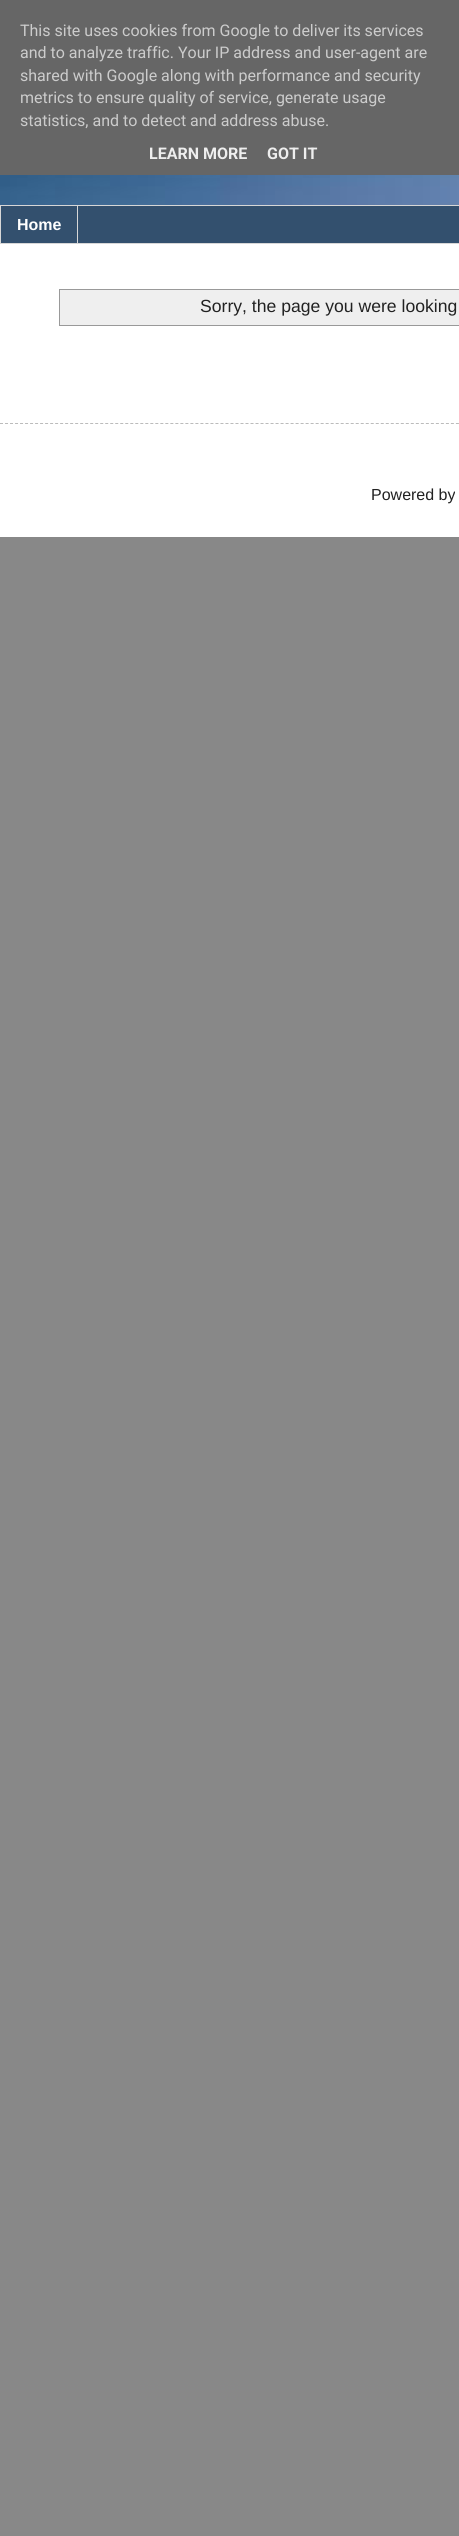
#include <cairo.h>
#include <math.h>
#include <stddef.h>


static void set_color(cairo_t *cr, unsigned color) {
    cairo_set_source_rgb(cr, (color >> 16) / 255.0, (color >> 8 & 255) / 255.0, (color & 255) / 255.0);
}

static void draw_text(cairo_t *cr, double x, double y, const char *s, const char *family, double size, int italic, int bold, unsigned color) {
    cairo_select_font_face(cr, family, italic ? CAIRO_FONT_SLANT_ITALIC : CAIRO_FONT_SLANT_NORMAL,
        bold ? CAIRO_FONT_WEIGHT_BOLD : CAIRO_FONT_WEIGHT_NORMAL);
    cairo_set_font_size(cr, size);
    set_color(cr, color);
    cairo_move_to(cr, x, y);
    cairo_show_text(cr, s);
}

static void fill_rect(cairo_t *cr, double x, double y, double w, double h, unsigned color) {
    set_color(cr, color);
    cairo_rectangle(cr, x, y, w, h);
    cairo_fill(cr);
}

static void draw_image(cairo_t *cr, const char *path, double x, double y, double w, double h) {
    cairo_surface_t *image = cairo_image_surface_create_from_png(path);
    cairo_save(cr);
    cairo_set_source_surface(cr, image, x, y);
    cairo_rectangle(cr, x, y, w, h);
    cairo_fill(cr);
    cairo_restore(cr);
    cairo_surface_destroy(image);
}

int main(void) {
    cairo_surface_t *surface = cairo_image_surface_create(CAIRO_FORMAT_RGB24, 459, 2536);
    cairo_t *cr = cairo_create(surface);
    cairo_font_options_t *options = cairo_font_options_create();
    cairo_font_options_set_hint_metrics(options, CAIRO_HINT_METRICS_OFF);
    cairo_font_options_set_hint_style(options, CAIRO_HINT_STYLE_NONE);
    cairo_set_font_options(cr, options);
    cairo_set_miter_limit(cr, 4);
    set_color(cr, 0x888888);
    cairo_paint(cr);
    fill_rect(cr, 0, 0, 459, 175, 0x666666);
    draw_text(cr, 20, 36, "This site uses cookies from Google to deliver its services", "Roboto", 16, 0, 0, 0xCCCCCC);
    draw_text(cr, 20, 58, "and to analyze traffic. Your IP address and user-agent are", "Roboto", 16, 0, 0, 0xCCCCCC);
    draw_text(cr, 20, 81, "shared with Google along with performance and security", "Roboto", 16, 0, 0, 0xCCCCCC);
    draw_text(cr, 20, 103, "metrics to ensure quality of service, generate usage", "Roboto", 16, 0, 0, 0xCCCCCC);
    draw_text(cr, 20, 126, "statistics, and to detect and address abuse.", "Roboto", 16, 0, 0, 0xCCCCCC);
    draw_text(cr, 149, 159, "LEARN MORE", "Roboto", 16, 0, 1, 0xEEEEEE);
    draw_text(cr, 267, 159, "GOT IT", "Roboto", 16, 0, 1, 0xEEEEEE);
    fill_rect(cr, 0, 244, 459, 293, 0xFFFFFF);
    draw_image(cr, "assets/img1.png", 0, 175, 459, 30);
    set_color(cr, 0x33506E);
    cairo_rectangle(cr, 0.5, 205.5, 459, 38);
    cairo_fill_preserve(cr);
    set_color(cr, 0xD7D7D7);
    cairo_set_line_width(cr, 1);
    cairo_stroke(cr);
    fill_rect(cr, 77, 206, 1, 37, 0xD7D7D7);
    draw_text(cr, 17, 230, "Home", "Liberation Sans", 16, 0, 1, 0xFFFFFF);
    cairo_rectangle(cr, 59.5, 289.5, 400, 36);
    set_color(cr, 0x999999);
    cairo_stroke(cr);
    fill_rect(cr, 60, 290, 399, 35, 0xEFEFEF);
    draw_text(cr, 200, 312, "Sorry, the page you were looking", "Liberation Sans", 17.6, 0, 0, 0x222222);
    cairo_new_path(cr);
    cairo_move_to(cr, 0, 423.5);
    cairo_line_to(cr, 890, 423.5);
    set_color(cr, 0xBBBBBB);
    cairo_set_dash(cr, (double[]){3, 2.01}, 2, 0);
    cairo_stroke(cr);
    draw_text(cr, 371, 500, "Powered by", "Liberation Sans", 16, 0, 0, 0x222222);
    cairo_surface_write_to_png(surface, "output.png");
    cairo_font_options_destroy(options);
    cairo_destroy(cr);
    cairo_surface_destroy(surface);
    return 0;
}
